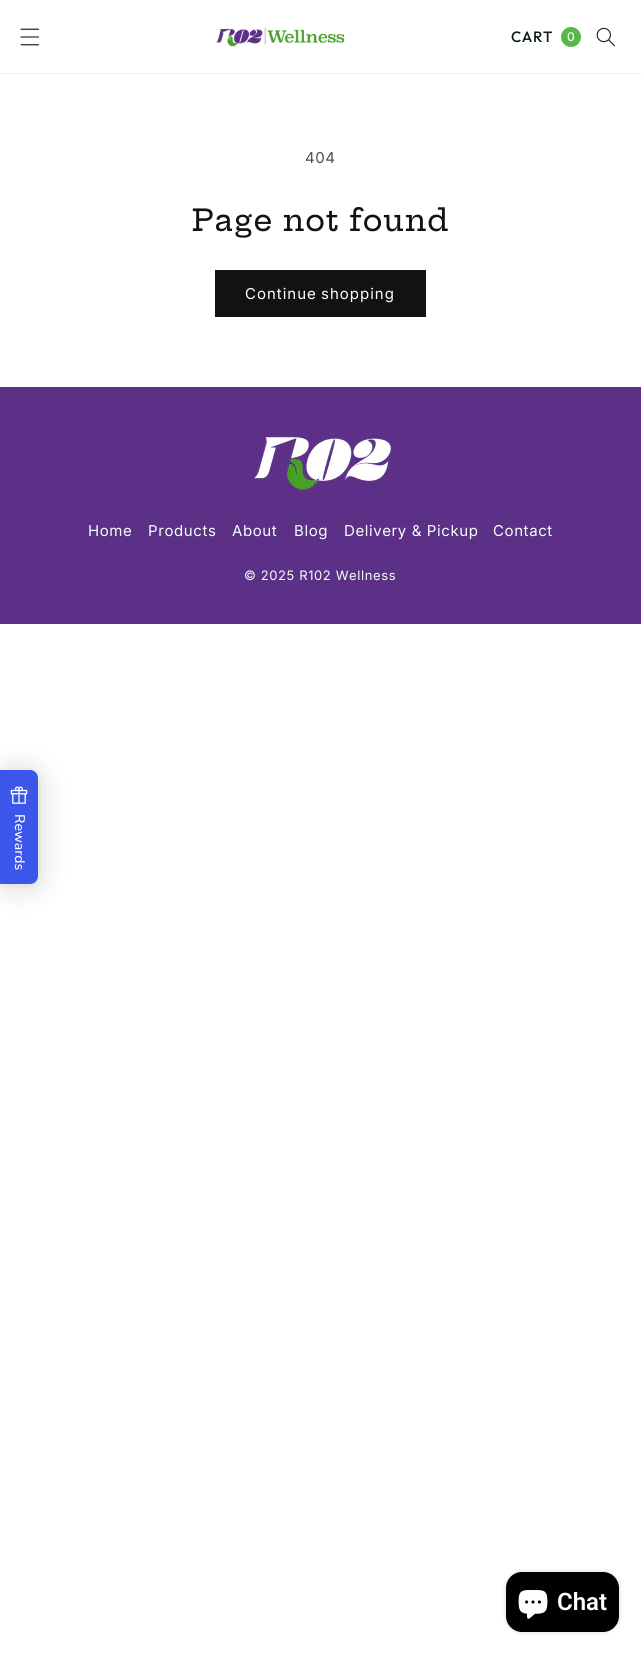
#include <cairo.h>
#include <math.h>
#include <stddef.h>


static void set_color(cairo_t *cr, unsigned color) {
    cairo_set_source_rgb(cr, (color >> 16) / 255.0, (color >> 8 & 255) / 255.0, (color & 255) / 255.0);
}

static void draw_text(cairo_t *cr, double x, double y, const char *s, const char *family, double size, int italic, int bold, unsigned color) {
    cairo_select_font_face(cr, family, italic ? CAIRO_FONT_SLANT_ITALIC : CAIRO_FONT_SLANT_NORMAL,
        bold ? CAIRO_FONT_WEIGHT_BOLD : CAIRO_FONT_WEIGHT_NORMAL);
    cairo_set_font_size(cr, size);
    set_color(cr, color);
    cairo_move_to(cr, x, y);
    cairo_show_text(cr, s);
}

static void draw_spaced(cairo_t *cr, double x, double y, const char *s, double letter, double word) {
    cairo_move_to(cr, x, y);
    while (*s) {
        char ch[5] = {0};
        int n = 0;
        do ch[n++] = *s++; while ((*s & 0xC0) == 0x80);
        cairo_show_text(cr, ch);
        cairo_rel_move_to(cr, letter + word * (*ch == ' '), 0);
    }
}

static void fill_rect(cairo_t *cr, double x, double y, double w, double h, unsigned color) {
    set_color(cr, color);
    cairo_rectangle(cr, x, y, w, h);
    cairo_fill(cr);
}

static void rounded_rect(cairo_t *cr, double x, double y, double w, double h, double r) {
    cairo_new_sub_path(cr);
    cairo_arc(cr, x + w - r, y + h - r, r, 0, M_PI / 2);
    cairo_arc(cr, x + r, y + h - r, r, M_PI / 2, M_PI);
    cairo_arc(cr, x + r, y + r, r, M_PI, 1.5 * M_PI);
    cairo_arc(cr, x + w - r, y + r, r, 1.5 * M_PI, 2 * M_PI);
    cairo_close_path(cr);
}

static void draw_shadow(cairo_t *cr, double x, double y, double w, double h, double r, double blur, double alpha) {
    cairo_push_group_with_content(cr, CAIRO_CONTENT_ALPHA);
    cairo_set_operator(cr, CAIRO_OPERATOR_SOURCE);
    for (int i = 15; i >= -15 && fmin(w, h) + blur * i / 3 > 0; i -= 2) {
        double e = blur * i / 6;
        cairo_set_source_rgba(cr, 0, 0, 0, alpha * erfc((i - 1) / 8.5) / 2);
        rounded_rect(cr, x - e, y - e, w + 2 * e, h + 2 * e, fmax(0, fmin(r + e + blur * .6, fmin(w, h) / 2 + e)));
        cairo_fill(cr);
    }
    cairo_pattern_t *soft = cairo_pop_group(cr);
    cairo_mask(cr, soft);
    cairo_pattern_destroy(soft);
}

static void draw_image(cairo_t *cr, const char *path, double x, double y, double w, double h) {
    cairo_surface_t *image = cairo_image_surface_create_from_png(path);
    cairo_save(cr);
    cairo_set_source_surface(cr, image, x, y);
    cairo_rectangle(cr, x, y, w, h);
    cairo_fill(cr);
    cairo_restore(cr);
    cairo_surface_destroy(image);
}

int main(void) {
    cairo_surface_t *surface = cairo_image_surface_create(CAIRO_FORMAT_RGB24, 641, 1653);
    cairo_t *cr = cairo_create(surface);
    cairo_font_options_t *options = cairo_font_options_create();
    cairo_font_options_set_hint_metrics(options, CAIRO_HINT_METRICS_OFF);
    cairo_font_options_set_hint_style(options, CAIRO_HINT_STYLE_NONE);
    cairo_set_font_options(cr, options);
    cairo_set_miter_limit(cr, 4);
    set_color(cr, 0xFFFFFF);
    cairo_paint(cr);
    fill_rect(cr, 0, 73, 641, 1, 0xECECEC);
    draw_image(cr, "assets/img1.png", 20, 28, 20, 18);
    draw_image(cr, "assets/img2.png", 216, 27, 129, 20);
    cairo_select_font_face(cr, "Outfit Medium", CAIRO_FONT_SLANT_NORMAL, CAIRO_FONT_WEIGHT_NORMAL);
    cairo_set_font_size(cr, 15);
    set_color(cr, 0x0D1C15);
    draw_spaced(cr, 511, 42, "CART", 0.6, 0);
    set_color(cr, 0x58B749);
    cairo_new_path(cr);
    cairo_arc(cr, 571, 37, 10, 0, 2 * M_PI);
    cairo_fill(cr);
    cairo_select_font_face(cr, "Inter Medium", CAIRO_FONT_SLANT_NORMAL, CAIRO_FONT_WEIGHT_NORMAL);
    cairo_set_font_size(cr, 12);
    set_color(cr, 0xF3FFF9);
    draw_spaced(cr, 567, 41, "0", 0.6, 0);
    draw_image(cr, "assets/img3.png", 596, 27, 19, 20);
    cairo_select_font_face(cr, "Inter", CAIRO_FONT_SLANT_NORMAL, CAIRO_FONT_WEIGHT_NORMAL);
    cairo_set_font_size(cr, 15);
    set_color(cr, 0x4D4D4D);
    draw_spaced(cr, 305, 163, "404", 0.6, 0);
    cairo_select_font_face(cr, "Hepta Slab Medium", CAIRO_FONT_SLANT_NORMAL, CAIRO_FONT_WEIGHT_NORMAL);
    cairo_set_font_size(cr, 30);
    set_color(cr, 0x121212);
    draw_spaced(cr, 192, 231, "Page not found", 0.6, 0);
    fill_rect(cr, 215, 270, 211, 47, 0x121212);
    cairo_select_font_face(cr, "Inter", CAIRO_FONT_SLANT_NORMAL, CAIRO_FONT_WEIGHT_NORMAL);
    cairo_set_font_size(cr, 15);
    set_color(cr, 0xFFFFFF);
    draw_spaced(cr, 245, 299, "Continue shopping", 1, -1);
    fill_rect(cr, 0, 387, 641, 237, 0x5D3088);
    draw_image(cr, "assets/img4.png", 252, 433, 144, 63);
    set_color(cr, 0xF3FFF9);
    draw_spaced(cr, 88, 536, "Home", 0.6, 0);
    draw_spaced(cr, 148, 536, "Products", 0.6, 0);
    draw_spaced(cr, 232, 536, "About", 0.6, 0);
    draw_spaced(cr, 294, 536, "Blog", 0.6, 0);
    draw_spaced(cr, 344, 536, "Delivery & Pickup", 0.6, 0);
    draw_spaced(cr, 493, 536, "Contact", 0.6, 0);
    cairo_set_font_size(cr, 13);
    draw_spaced(cr, 244, 580, "© 2025 R102 Wellness", 0.6, 0);
    set_color(cr, 0x000000);
    draw_shadow(cr, 0, 772, 38, 114, 8, 16, 0.16);
    draw_shadow(cr, 0, 771, 38, 114, 8, 3, 0.06);
    set_color(cr, 0x3C56E9);
    cairo_new_path(cr);
    cairo_move_to(cr, 0, 770);
    cairo_line_to(cr, 30, 770);
    cairo_curve_to(cr, 34.5, 770, 38, 773.5, 38, 778);
    cairo_line_to(cr, 38, 876);
    cairo_curve_to(cr, 38, 880.5, 34.5, 884, 30, 884);
    cairo_line_to(cr, 0, 884);
    cairo_close_path(cr);
    cairo_fill(cr);
    draw_image(cr, "assets/img5.png", 10, 786, 18, 18);
    cairo_save(cr);
    cairo_translate(cr, 15, 814);
    cairo_rotate(cr, 90 * M_PI / 180);
    draw_text(cr, 0, 0, "Rewards", "Nunito Medium", 14, 0, 0, 0xFFFFFF);
    cairo_restore(cr);
    set_color(cr, 0x000000);
    draw_shadow(cr, 506, 1572, 113, 60, 16, 2.5, 0.15);
    set_color(cr, 0x000000);
    rounded_rect(cr, 506, 1572, 113, 60, 16);
    cairo_fill(cr);
    draw_image(cr, "assets/img6.png", 518, 1590, 30, 29);
    draw_text(cr, 557, 1610, "Chat", "Roboto SemiBold", 24, 0, 0, 0xFFFFFF);
    cairo_surface_write_to_png(surface, "output.png");
    cairo_font_options_destroy(options);
    cairo_destroy(cr);
    cairo_surface_destroy(surface);
    return 0;
}
